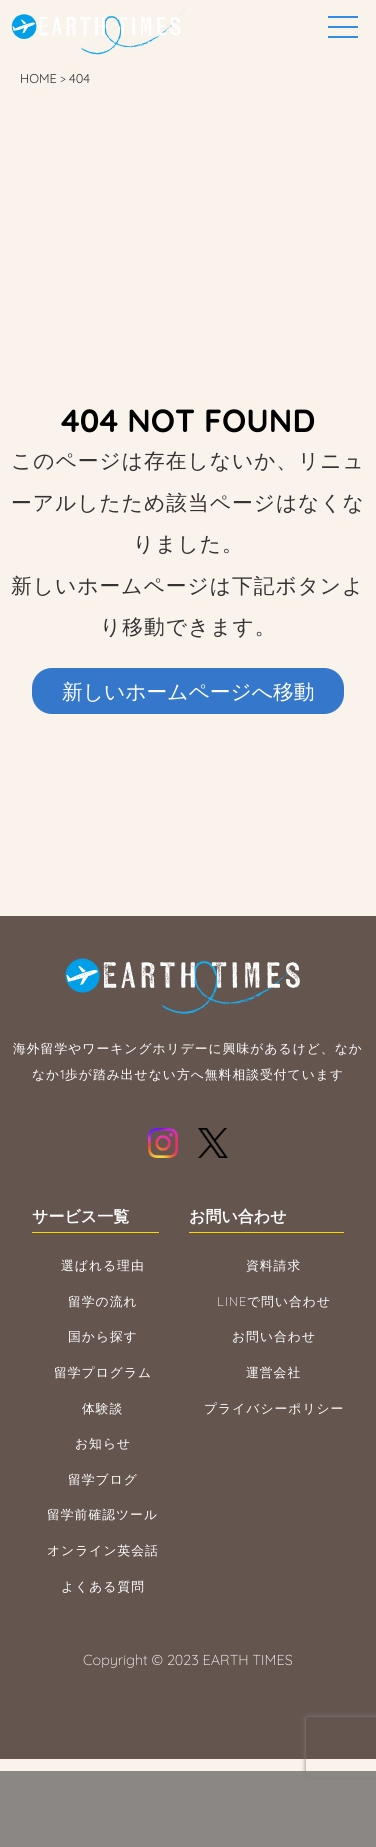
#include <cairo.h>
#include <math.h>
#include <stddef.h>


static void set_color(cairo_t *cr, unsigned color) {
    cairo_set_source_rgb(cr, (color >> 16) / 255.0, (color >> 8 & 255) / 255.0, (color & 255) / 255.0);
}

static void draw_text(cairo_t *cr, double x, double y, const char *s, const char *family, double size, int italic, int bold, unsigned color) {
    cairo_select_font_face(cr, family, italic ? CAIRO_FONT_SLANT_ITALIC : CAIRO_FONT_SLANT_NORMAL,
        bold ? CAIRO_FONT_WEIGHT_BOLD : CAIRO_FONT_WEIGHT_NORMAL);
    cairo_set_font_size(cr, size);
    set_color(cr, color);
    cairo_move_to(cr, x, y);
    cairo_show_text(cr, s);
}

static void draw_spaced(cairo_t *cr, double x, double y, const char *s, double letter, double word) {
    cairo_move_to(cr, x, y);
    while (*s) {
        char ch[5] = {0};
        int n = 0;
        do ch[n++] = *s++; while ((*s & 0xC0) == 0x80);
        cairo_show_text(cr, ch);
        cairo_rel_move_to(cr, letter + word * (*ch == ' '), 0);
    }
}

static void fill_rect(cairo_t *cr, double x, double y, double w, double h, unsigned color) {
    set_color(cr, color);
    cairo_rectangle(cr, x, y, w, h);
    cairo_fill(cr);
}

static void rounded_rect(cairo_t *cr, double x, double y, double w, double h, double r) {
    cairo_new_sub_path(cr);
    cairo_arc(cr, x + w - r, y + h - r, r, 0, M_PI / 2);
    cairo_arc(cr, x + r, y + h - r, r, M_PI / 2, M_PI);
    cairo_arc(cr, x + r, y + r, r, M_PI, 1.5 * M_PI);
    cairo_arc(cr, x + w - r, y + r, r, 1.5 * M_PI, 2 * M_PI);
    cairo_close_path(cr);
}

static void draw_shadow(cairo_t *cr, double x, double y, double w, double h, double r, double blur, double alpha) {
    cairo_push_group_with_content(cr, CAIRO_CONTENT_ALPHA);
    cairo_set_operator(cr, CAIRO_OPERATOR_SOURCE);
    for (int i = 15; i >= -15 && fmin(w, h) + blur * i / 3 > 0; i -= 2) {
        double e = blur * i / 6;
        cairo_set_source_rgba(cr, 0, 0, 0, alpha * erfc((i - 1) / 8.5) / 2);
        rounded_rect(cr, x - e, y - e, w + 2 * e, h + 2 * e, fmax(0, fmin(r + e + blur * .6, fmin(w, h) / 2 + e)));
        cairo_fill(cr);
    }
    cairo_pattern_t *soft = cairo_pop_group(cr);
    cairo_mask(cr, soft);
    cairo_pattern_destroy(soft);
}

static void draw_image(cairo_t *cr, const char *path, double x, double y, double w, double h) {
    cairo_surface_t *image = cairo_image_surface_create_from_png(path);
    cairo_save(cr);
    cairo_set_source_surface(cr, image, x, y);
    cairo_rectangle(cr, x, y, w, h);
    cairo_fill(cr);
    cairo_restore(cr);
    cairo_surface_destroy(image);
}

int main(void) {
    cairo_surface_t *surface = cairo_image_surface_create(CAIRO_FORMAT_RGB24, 376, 1847);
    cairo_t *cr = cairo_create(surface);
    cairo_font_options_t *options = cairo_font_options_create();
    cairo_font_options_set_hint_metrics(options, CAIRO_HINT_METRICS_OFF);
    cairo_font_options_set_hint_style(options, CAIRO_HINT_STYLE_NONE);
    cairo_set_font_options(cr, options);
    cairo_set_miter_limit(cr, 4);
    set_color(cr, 0xFAF3EC);
    cairo_paint(cr);
    draw_image(cr, "assets/img1.png", 11, 8, 175, 47);
    fill_rect(cr, 328, 16, 30, 2, 0x328BE9);
    fill_rect(cr, 328, 26, 30, 2, 0x328BE9);
    fill_rect(cr, 328, 36, 30, 2, 0x328BE9);
    draw_text(cr, 20, 83, "HOME", "Quicksand", 12.8, 0, 0, 0x333333);
    draw_text(cr, 60, 83, ">", "Quicksand", 11, 0, 0, 0x333333);
    draw_text(cr, 69, 83, "404", "Quicksand", 12.8, 0, 0, 0x333333);
    draw_text(cr, 61, 432, "404 NOT FOUND", "Quicksand", 32, 0, 1, 0x000000);
    cairo_select_font_face(cr, "WenQuanYi Zen Hei Medium", CAIRO_FONT_SLANT_NORMAL, CAIRO_FONT_WEIGHT_NORMAL);
    cairo_set_font_size(cr, 20.75);
    set_color(cr, 0x333333);
    draw_spaced(cr, 11, 468, "このページは存在しないか、リニュ", 1, 0);
    draw_spaced(cr, 11, 510, "ーアルしたため該当ページはなくな", 1, 0);
    draw_spaced(cr, 133, 551, "りました。", 1, 0);
    draw_spaced(cr, 11, 593, "新しいホームページは下記ボタンよ", 1, 0);
    draw_spaced(cr, 100, 634, "り移動できます。", 1, 0);
    set_color(cr, 0x3577CA);
    rounded_rect(cr, 32, 668, 312, 46, 20);
    cairo_fill(cr);
    draw_text(cr, 62, 699, "新しいホームページへ移動", "WenQuanYi Zen Hei Medium", 20.75, 0, 0, 0xFFFFFF);
    fill_rect(cr, 0, 1771, 376, 76, 0x8B8784);
    fill_rect(cr, 0, 916, 376, 843, 0x64554F);
    draw_image(cr, "assets/img2.png", 65, 952, 241, 62);
    cairo_set_font_size(cr, 12.8);
    set_color(cr, 0xFFFFFF);
    draw_spaced(cr, 13, 1053, "海外留学やワーキングホリデーに興味があるけど、なか", 1, 0);
    draw_spaced(cr, 32, 1079, "なか", 1, 0);
    cairo_select_font_face(cr, "Quicksand", CAIRO_FONT_SLANT_NORMAL, CAIRO_FONT_WEIGHT_NORMAL);
    draw_spaced(cr, 60, 1079, "1", 1, 0);
    cairo_select_font_face(cr, "WenQuanYi Zen Hei Medium", CAIRO_FONT_SLANT_NORMAL, CAIRO_FONT_WEIGHT_NORMAL);
    draw_spaced(cr, 65, 1079, "歩が踏み出せない方へ無料相談受付ています", 1, 0);
    draw_image(cr, "assets/img3.png", 148, 1128, 30, 30);
    draw_image(cr, "assets/img4.png", 198, 1128, 30, 30);
    fill_rect(cr, 32, 1232, 127, 1, 0xFFD700);
    draw_text(cr, 32, 1222, "サービス一覧", "WenQuanYi Zen Hei", 16, 0, 1, 0xFFFFFF);
    cairo_select_font_face(cr, "WenQuanYi Zen Hei Medium", CAIRO_FONT_SLANT_NORMAL, CAIRO_FONT_WEIGHT_NORMAL);
    cairo_set_font_size(cr, 12.8);
    draw_spaced(cr, 61, 1270, "選ばれる理由", 1, 0);
    draw_spaced(cr, 68, 1306, "留学の流れ", 1, 0);
    draw_spaced(cr, 68, 1341, "国から探す", 1, 0);
    draw_spaced(cr, 54, 1377, "留学プログラム", 1, 0);
    draw_spaced(cr, 82, 1413, "体験談", 1, 0);
    draw_spaced(cr, 75, 1448, "お知らせ", 1, 0);
    draw_spaced(cr, 68, 1484, "留学ブログ", 1, 0);
    draw_spaced(cr, 47, 1519, "留学前確認ツール", 1, 0);
    draw_spaced(cr, 47, 1555, "オンライン英会話", 1, 0);
    draw_spaced(cr, 61, 1591, "よくある質問", 1, 0);
    fill_rect(cr, 189, 1232, 155, 1, 0xFFD700);
    draw_text(cr, 189, 1222, "お問い合わせ", "WenQuanYi Zen Hei", 16, 0, 1, 0xFFFFFF);
    cairo_select_font_face(cr, "WenQuanYi Zen Hei Medium", CAIRO_FONT_SLANT_NORMAL, CAIRO_FONT_WEIGHT_NORMAL);
    cairo_set_font_size(cr, 12.8);
    draw_spaced(cr, 246, 1270, "資料請求", 1, 0);
    cairo_select_font_face(cr, "Quicksand Light", CAIRO_FONT_SLANT_NORMAL, CAIRO_FONT_WEIGHT_NORMAL);
    draw_spaced(cr, 217, 1306, "LINE", 1, 0);
    cairo_select_font_face(cr, "WenQuanYi Zen Hei Medium", CAIRO_FONT_SLANT_NORMAL, CAIRO_FONT_WEIGHT_NORMAL);
    draw_spaced(cr, 247, 1306, "で問い合わせ", 1, 0);
    draw_spaced(cr, 232, 1341, "お問い合わせ", 1, 0);
    draw_spaced(cr, 246, 1377, "運営会社", 1, 0);
    draw_spaced(cr, 204, 1413, "プライバシーポリシー", 1, 0);
    draw_text(cr, 83, 1665, "Copyright © 2023 EARTH TIMES", "Quicksand Light", 14.4, 0, 0, 0xFFFFFF);
    cairo_save(cr);
    cairo_set_fill_rule(cr, CAIRO_FILL_RULE_EVEN_ODD);
    cairo_new_path(cr);
    cairo_move_to(cr, 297, 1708);
    cairo_line_to(cr, 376, 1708);
    cairo_line_to(cr, 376, 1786);
    cairo_line_to(cr, 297, 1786);
    cairo_close_path(cr);
    cairo_move_to(cr, 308, 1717);
    cairo_line_to(cr, 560, 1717);
    cairo_curve_to(cr, 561, 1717, 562, 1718, 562, 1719);
    cairo_line_to(cr, 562, 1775);
    cairo_curve_to(cr, 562, 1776, 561, 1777, 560, 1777);
    cairo_line_to(cr, 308, 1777);
    cairo_curve_to(cr, 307, 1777, 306, 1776, 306, 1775);
    cairo_line_to(cr, 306, 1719);
    cairo_curve_to(cr, 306, 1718, 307, 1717, 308, 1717);
    cairo_close_path(cr);
    cairo_clip(cr);
    set_color(cr, 0x808080);
    draw_shadow(cr, 306, 1717, 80, 60, 2, 2.5, 1);
    cairo_restore(cr);
    cairo_surface_write_to_png(surface, "output.png");
    cairo_font_options_destroy(options);
    cairo_destroy(cr);
    cairo_surface_destroy(surface);
    return 0;
}
